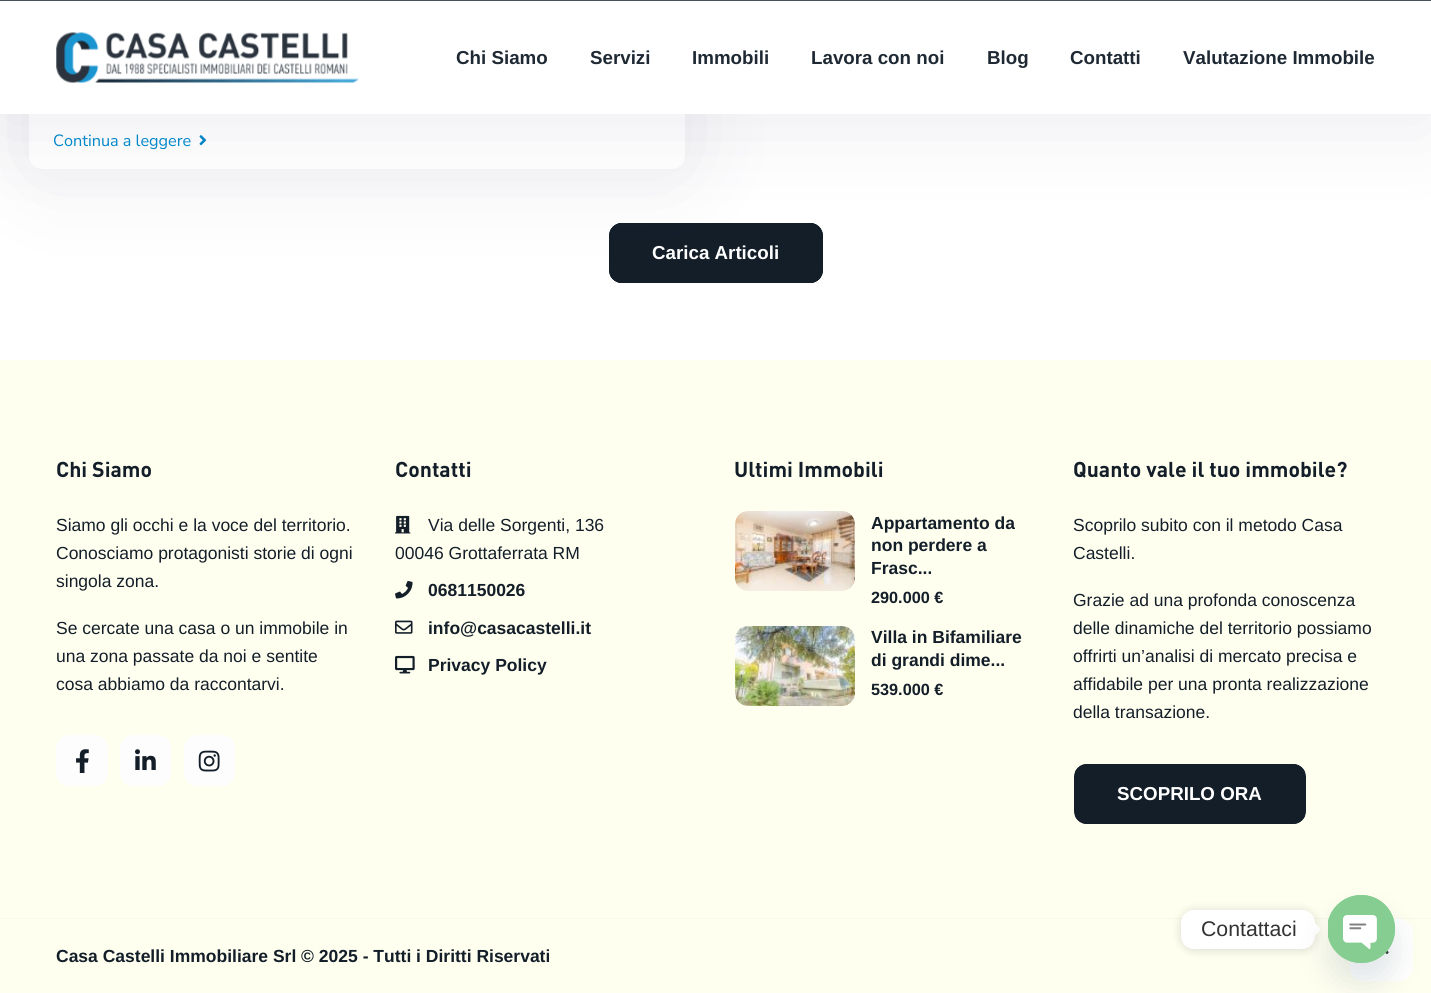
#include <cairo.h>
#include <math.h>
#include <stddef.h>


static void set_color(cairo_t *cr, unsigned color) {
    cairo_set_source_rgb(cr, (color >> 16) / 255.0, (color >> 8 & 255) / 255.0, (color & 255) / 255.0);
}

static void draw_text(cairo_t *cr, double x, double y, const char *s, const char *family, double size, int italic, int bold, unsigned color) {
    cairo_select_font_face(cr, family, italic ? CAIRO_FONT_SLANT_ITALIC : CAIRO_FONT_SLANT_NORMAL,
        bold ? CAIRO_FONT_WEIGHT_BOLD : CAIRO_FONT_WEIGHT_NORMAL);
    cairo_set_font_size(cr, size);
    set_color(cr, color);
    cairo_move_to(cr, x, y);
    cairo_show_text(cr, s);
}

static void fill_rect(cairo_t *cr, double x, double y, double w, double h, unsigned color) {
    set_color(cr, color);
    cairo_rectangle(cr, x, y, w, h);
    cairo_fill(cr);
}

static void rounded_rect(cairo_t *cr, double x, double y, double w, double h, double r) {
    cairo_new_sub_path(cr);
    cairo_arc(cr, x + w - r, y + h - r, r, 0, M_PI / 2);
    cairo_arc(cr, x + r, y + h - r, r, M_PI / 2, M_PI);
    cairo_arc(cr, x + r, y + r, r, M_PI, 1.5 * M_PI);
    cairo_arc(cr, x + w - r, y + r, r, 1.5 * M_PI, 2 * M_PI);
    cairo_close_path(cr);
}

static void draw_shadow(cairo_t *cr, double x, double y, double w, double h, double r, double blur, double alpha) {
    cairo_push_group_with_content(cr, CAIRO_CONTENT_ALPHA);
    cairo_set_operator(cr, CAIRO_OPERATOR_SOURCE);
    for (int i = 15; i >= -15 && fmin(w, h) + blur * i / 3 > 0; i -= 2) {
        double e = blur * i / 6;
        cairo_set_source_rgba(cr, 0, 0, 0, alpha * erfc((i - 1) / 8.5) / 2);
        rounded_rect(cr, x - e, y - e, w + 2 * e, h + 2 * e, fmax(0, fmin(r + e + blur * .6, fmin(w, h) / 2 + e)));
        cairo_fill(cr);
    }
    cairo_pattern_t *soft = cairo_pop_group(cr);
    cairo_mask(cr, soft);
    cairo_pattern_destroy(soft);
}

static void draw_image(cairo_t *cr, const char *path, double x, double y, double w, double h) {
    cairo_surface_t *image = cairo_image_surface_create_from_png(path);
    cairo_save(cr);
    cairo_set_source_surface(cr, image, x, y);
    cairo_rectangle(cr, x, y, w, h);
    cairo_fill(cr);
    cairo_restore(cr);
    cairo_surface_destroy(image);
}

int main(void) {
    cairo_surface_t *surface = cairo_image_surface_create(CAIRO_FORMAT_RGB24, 1431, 993);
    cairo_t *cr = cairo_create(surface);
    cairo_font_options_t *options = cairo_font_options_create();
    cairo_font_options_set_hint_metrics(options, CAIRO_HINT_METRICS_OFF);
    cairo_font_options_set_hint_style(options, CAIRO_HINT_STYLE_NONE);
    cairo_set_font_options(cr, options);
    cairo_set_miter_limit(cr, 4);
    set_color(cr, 0xFFFFF0);
    cairo_paint(cr);
    fill_rect(cr, 0, 114, 1431, 246, 0xFFFFFF);
    set_color(cr, 0x131E29);
    rounded_rect(cr, 609, 223, 214, 60, 13);
    cairo_fill(cr);
    cairo_save(cr);
    rounded_rect(cr, 609, 223, 214, 60, 13);
    cairo_clip(cr);
    fill_rect(cr, 610, 223, 211, 60, 0x131E29);
    cairo_restore(cr);
    rounded_rect(cr, 609.5, 223.5, 213, 59, 12.5);
    cairo_set_line_width(cr, 1);
    cairo_stroke(cr);
    set_color(cr, 0x262A4C);
    draw_shadow(cr, 29, -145, 656, 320, 13, 44, 0.1);
    set_color(cr, 0xFFFFFF);
    rounded_rect(cr, 29, -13, 656, 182, 13);
    cairo_fill(cr);
    fill_rect(cr, 0, 0, 1431, 1, 0x4B535B);
    draw_image(cr, "assets/img2.png", 199, 135, 7, 11);
    set_color(cr, 0x262A4C);
    draw_shadow(cr, 0, 8, 1431, 112, 0, 44, 0.1);
    fill_rect(cr, 0, 1, 1431, 113, 0xFFFFFF);
    draw_image(cr, "assets/img1.png", 56, 32, 303, 51);
    draw_text(cr, 456, 64, "Chi Siamo", "Liberation Sans", 18.75, 0, 1, 0x1F2934);
    draw_text(cr, 590, 64, "Servizi", "Liberation Sans", 18.75, 0, 1, 0x1F2934);
    draw_text(cr, 692, 64, "Immobili", "Liberation Sans", 18.75, 0, 1, 0x1F2934);
    draw_text(cr, 811, 64, "Lavora con noi", "Liberation Sans", 18.75, 0, 1, 0x1F2934);
    draw_text(cr, 987, 64, "Blog", "Liberation Sans", 18.75, 0, 1, 0x1F2934);
    draw_text(cr, 1070, 64, "Contatti", "Liberation Sans", 18.75, 0, 1, 0x1F2934);
    draw_text(cr, 1183, 64, "Valutazione Immobile", "Liberation Sans", 18.75, 0, 1, 0x1F2934);
    draw_text(cr, 53, 146, "Continua a leggere", "Nunito Sans", 16.25, 0, 0, 0x0087CA);
    draw_text(cr, 652, 259, "Carica Articoli", "Liberation Sans", 18.75, 0, 1, 0xFFFFFF);
    draw_text(cr, 56, 477, "Chi Siamo", "DIN", 21.25, 0, 1, 0x131E29);
    draw_text(cr, 56, 531, "Siamo gli occhi e la voce del territorio.", "Liberation Sans", 17.5, 0, 0, 0x131E29);
    draw_text(cr, 56, 559, "Conosciamo protagonisti storie di ogni", "Liberation Sans", 17.5, 0, 0, 0x131E29);
    draw_text(cr, 56, 587, "singola zona.", "Liberation Sans", 17.5, 0, 0, 0x131E29);
    draw_text(cr, 56, 634, "Se cercate una casa o un immobile in", "Liberation Sans", 17.5, 0, 0, 0x131E29);
    draw_text(cr, 56, 662, "una zona passate da noi e sentite", "Liberation Sans", 17.5, 0, 0, 0x131E29);
    draw_text(cr, 56, 690, "cosa abbiamo da raccontarvi.", "Liberation Sans", 17.5, 0, 0, 0x131E29);
    set_color(cr, 0xFDFDFD);
    rounded_rect(cr, 56, 735, 52, 51, 13);
    cairo_fill(cr);
    draw_image(cr, "assets/img3.png", 76, 749, 13, 24);
    rounded_rect(cr, 120, 735, 51, 51, 13);
    cairo_fill(cr);
    draw_image(cr, "assets/img4.png", 135, 749, 21, 21);
    rounded_rect(cr, 184, 735, 51, 51, 13);
    cairo_fill(cr);
    draw_image(cr, "assets/img5.png", 198, 750, 22, 22);
    draw_text(cr, 395, 477, "Contatti", "DIN", 21.25, 0, 1, 0x131E29);
    draw_image(cr, "assets/img6.png", 395, 515, 16, 19);
    draw_text(cr, 428, 531, "Via delle Sorgenti, 136", "Liberation Sans", 17.5, 0, 0, 0x131E29);
    draw_text(cr, 395, 559, "00046 Grottaferrata RM", "Liberation Sans", 17.5, 0, 0, 0x131E29);
    draw_image(cr, "assets/img7.png", 395, 581, 18, 18);
    draw_text(cr, 428, 596, "0681150026", "Liberation Sans", 17.5, 0, 1, 0x131E29);
    draw_image(cr, "assets/img8.png", 395, 620, 18, 14);
    draw_text(cr, 428, 634, "info@casacastelli.it", "Liberation Sans", 17.5, 0, 1, 0x131E29);
    draw_image(cr, "assets/img9.png", 395, 655, 20, 19);
    draw_text(cr, 428, 671, "Privacy Policy", "Liberation Sans", 17.5, 0, 1, 0x131E29);
    draw_text(cr, 734, 477, "Ultimi Immobili", "DIN", 21.25, 0, 1, 0x131E29);
    draw_image(cr, "assets/img10.png", 735, 511, 120, 80);
    draw_text(cr, 871, 529, "Appartamento da", "Liberation Sans", 17.5, 0, 1, 0x131E29);
    draw_text(cr, 871, 551, "non perdere a", "Liberation Sans", 17.5, 0, 1, 0x131E29);
    draw_text(cr, 871, 574, "Frasc...", "Liberation Sans", 17.5, 0, 1, 0x131E29);
    draw_text(cr, 871, 603, "290.000 €", "Liberation Sans", 16.25, 0, 1, 0x131E29);
    draw_image(cr, "assets/img11.png", 735, 626, 120, 80);
    draw_text(cr, 871, 643, "Villa in Bifamiliare", "Liberation Sans", 17.5, 0, 1, 0x131E29);
    draw_text(cr, 871, 666, "di grandi dime...", "Liberation Sans", 17.5, 0, 1, 0x131E29);
    draw_text(cr, 871, 695, "539.000 €", "Liberation Sans", 16.25, 0, 1, 0x131E29);
    draw_text(cr, 1073, 477, "Quanto vale il tuo immobile?", "DIN", 21.25, 0, 1, 0x131E29);
    draw_text(cr, 1073, 531, "Scoprilo subito con il metodo Casa", "Liberation Sans", 17.5, 0, 0, 0x131E29);
    draw_text(cr, 1073, 559, "Castelli.", "Liberation Sans", 17.5, 0, 0, 0x131E29);
    draw_text(cr, 1073, 606, "Grazie ad una profonda conoscenza", "Liberation Sans", 17.5, 0, 0, 0x131E29);
    draw_text(cr, 1073, 634, "delle dinamiche del territorio possiamo", "Liberation Sans", 17.5, 0, 0, 0x131E29);
    draw_text(cr, 1073, 662, "offrirti un’analisi di mercato precisa e", "Liberation Sans", 17.5, 0, 0, 0x131E29);
    draw_text(cr, 1073, 690, "affidabile per una pronta realizzazione", "Liberation Sans", 17.5, 0, 0, 0x131E29);
    draw_text(cr, 1073, 718, "della transazione.", "Liberation Sans", 17.5, 0, 0, 0x131E29);
    cairo_save(cr);
    rounded_rect(cr, 1074, 764, 232, 60, 13);
    cairo_clip(cr);
    fill_rect(cr, 1075, 764, 230, 60, 0x131E29);
    cairo_restore(cr);
    rounded_rect(cr, 1074.5, 764.5, 231, 59, 12.5);
    cairo_stroke(cr);
    draw_text(cr, 1117, 800, "SCOPRILO ORA", "Liberation Sans", 18.75, 0, 1, 0xFFFFFF);
    fill_rect(cr, 0, 918, 1431, 1, 0xF9F9EA);
    draw_text(cr, 56, 962, "Casa Castelli Immobiliare Srl © 2025 - Tutti i Diritti Riservati", "Liberation Sans", 17.5, 0, 1, 0x131E29);
    set_color(cr, 0xFFFFFE);
    rounded_rect(cr, 1350, 919, 63, 62, 13);
    cairo_fill(cr);
    draw_image(cr, "assets/img12.png", 1385, 950, 4, 4);
    set_color(cr, 0x000000);
    draw_shadow(cr, 1181, 911, 134, 39, 13, 5, 0.15);
    set_color(cr, 0xFFFFFF);
    rounded_rect(cr, 1181, 910, 134, 39, 13);
    cairo_fill(cr);
    draw_text(cr, 1201, 936, "Contattaci", "Liberation Sans", 21.25, 0, 0, 0x333333);
    set_color(cr, 0xFFFFFF);
    cairo_new_path(cr);
    cairo_move_to(cr, 1315, 935.5);
    cairo_line_to(cr, 1315, 923);
    cairo_line_to(cr, 1321, 929.5);
    cairo_close_path(cr);
    cairo_fill(cr);
    set_color(cr, 0x49687E);
    draw_shadow(cr, 1328, 915, 67, 68, 33.5, 15, 0.16);
    set_color(cr, 0x86CD91);
    rounded_rect(cr, 1328, 895, 67, 68, 33.5);
    cairo_fill(cr);
    draw_image(cr, "assets/img13.png", 1328, 895, 67, 68);
    cairo_surface_write_to_png(surface, "output.png");
    cairo_font_options_destroy(options);
    cairo_destroy(cr);
    cairo_surface_destroy(surface);
    return 0;
}
